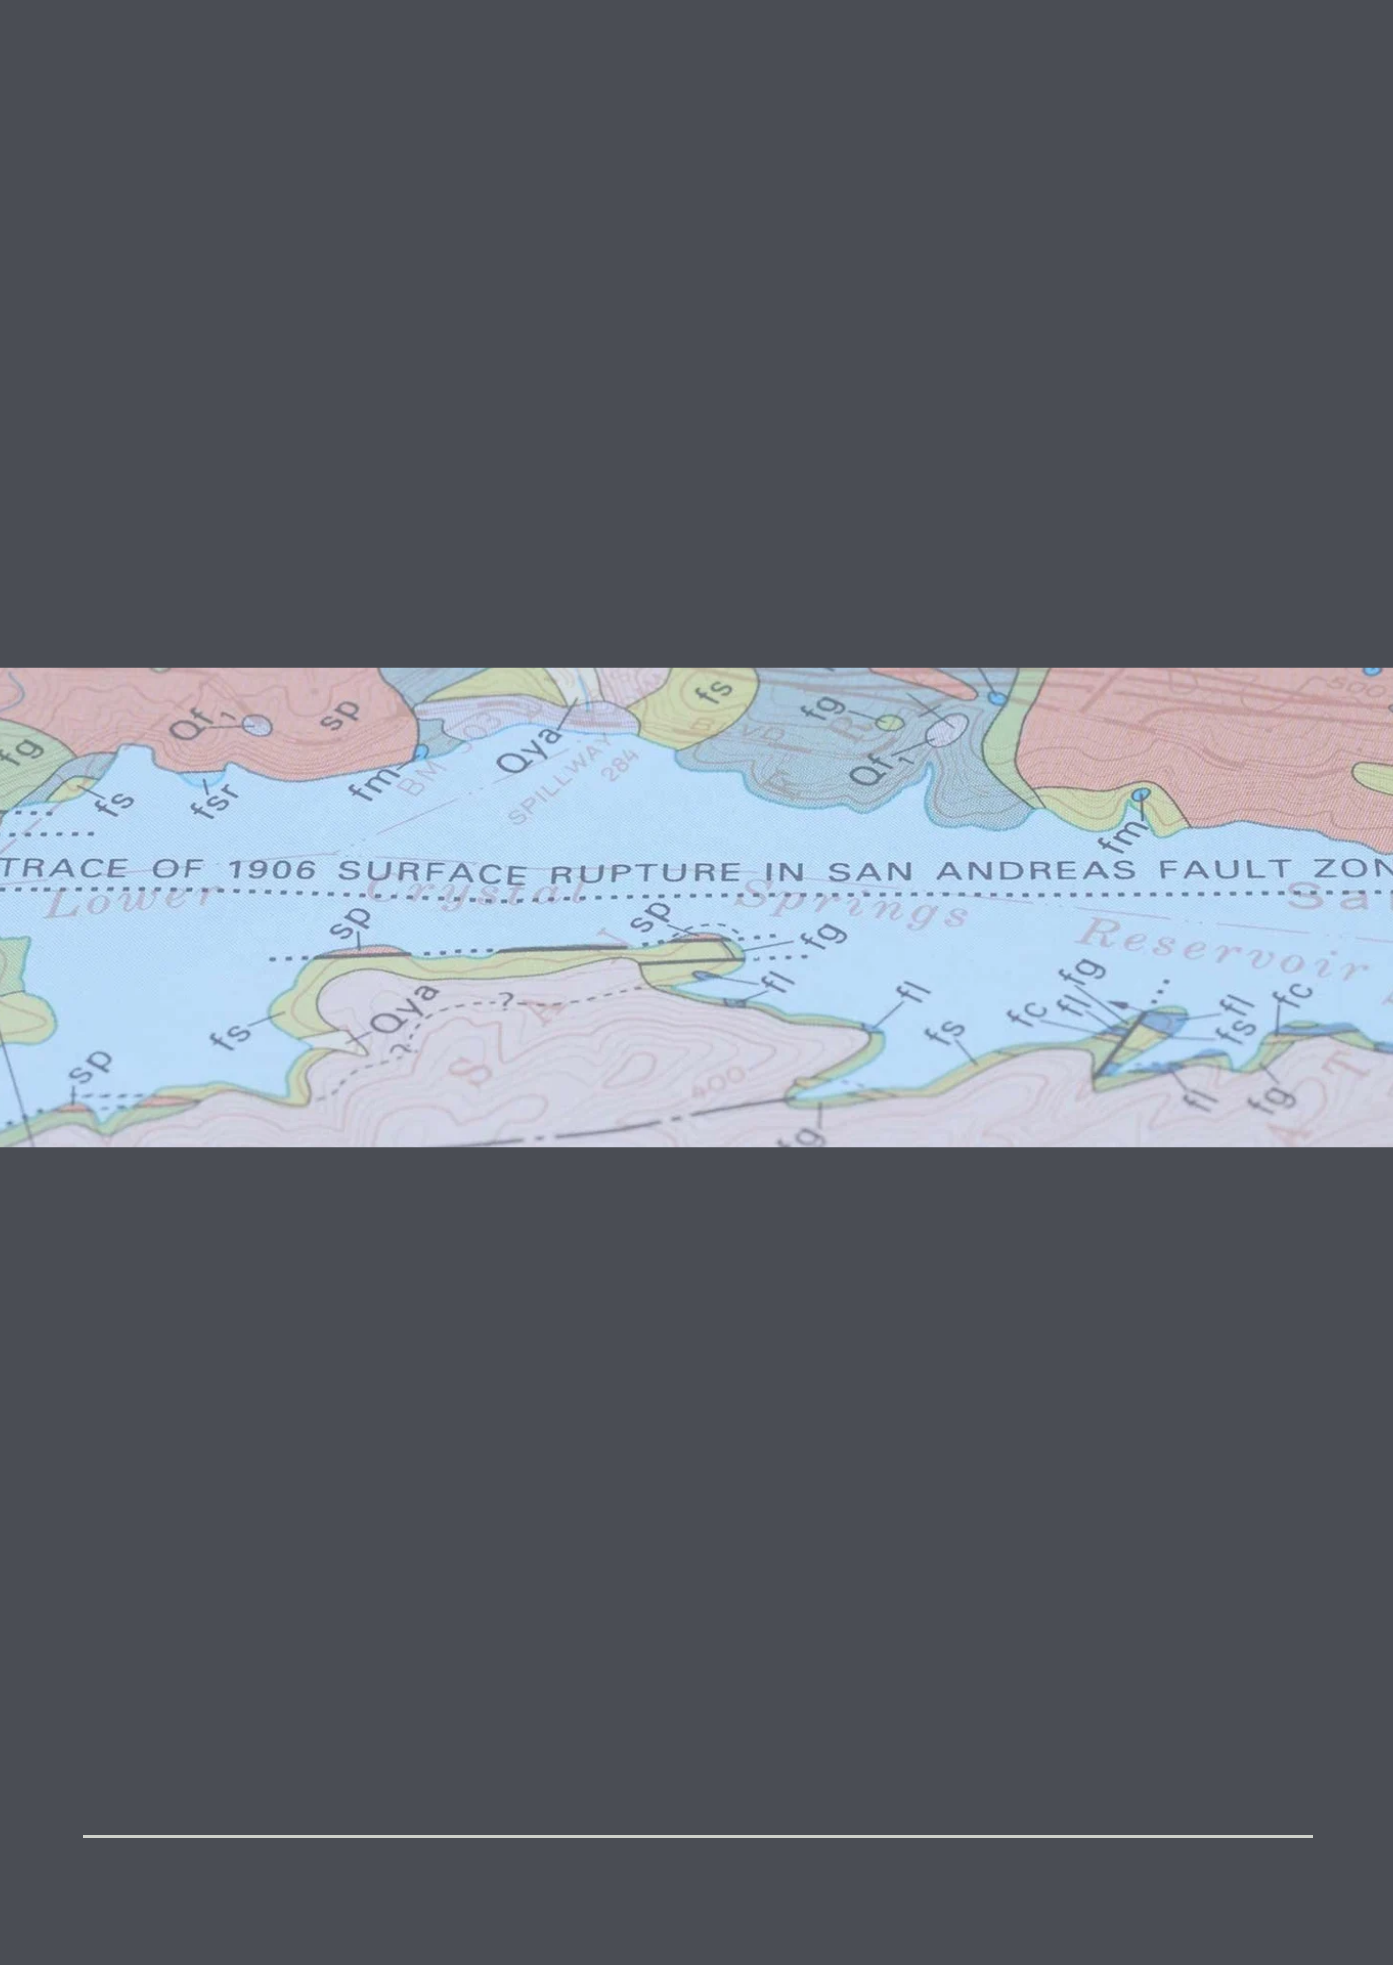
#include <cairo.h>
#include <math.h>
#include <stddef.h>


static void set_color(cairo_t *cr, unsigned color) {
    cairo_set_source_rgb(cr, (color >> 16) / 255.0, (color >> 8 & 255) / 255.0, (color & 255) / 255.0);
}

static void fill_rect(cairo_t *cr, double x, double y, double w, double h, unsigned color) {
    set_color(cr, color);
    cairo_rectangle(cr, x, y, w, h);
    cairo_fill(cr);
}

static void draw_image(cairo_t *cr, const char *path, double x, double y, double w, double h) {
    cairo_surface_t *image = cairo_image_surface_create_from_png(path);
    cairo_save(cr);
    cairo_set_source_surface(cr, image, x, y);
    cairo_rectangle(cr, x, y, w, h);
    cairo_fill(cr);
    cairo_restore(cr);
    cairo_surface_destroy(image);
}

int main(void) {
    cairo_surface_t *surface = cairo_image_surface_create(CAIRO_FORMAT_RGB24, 1393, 1965);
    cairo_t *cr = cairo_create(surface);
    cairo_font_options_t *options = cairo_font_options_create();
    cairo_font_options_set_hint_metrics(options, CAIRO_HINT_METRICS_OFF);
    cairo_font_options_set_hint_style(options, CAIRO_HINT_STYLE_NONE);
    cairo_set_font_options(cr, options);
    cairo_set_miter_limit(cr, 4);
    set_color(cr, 0x4A4D54);
    cairo_paint(cr);
    draw_image(cr, "assets/img1.png", 0, 667, 1393, 481);
    fill_rect(cr, 83, 1835, 1230, 3, 0xCFD2CB);
    cairo_surface_write_to_png(surface, "output.png");
    cairo_font_options_destroy(options);
    cairo_destroy(cr);
    cairo_surface_destroy(surface);
    return 0;
}
